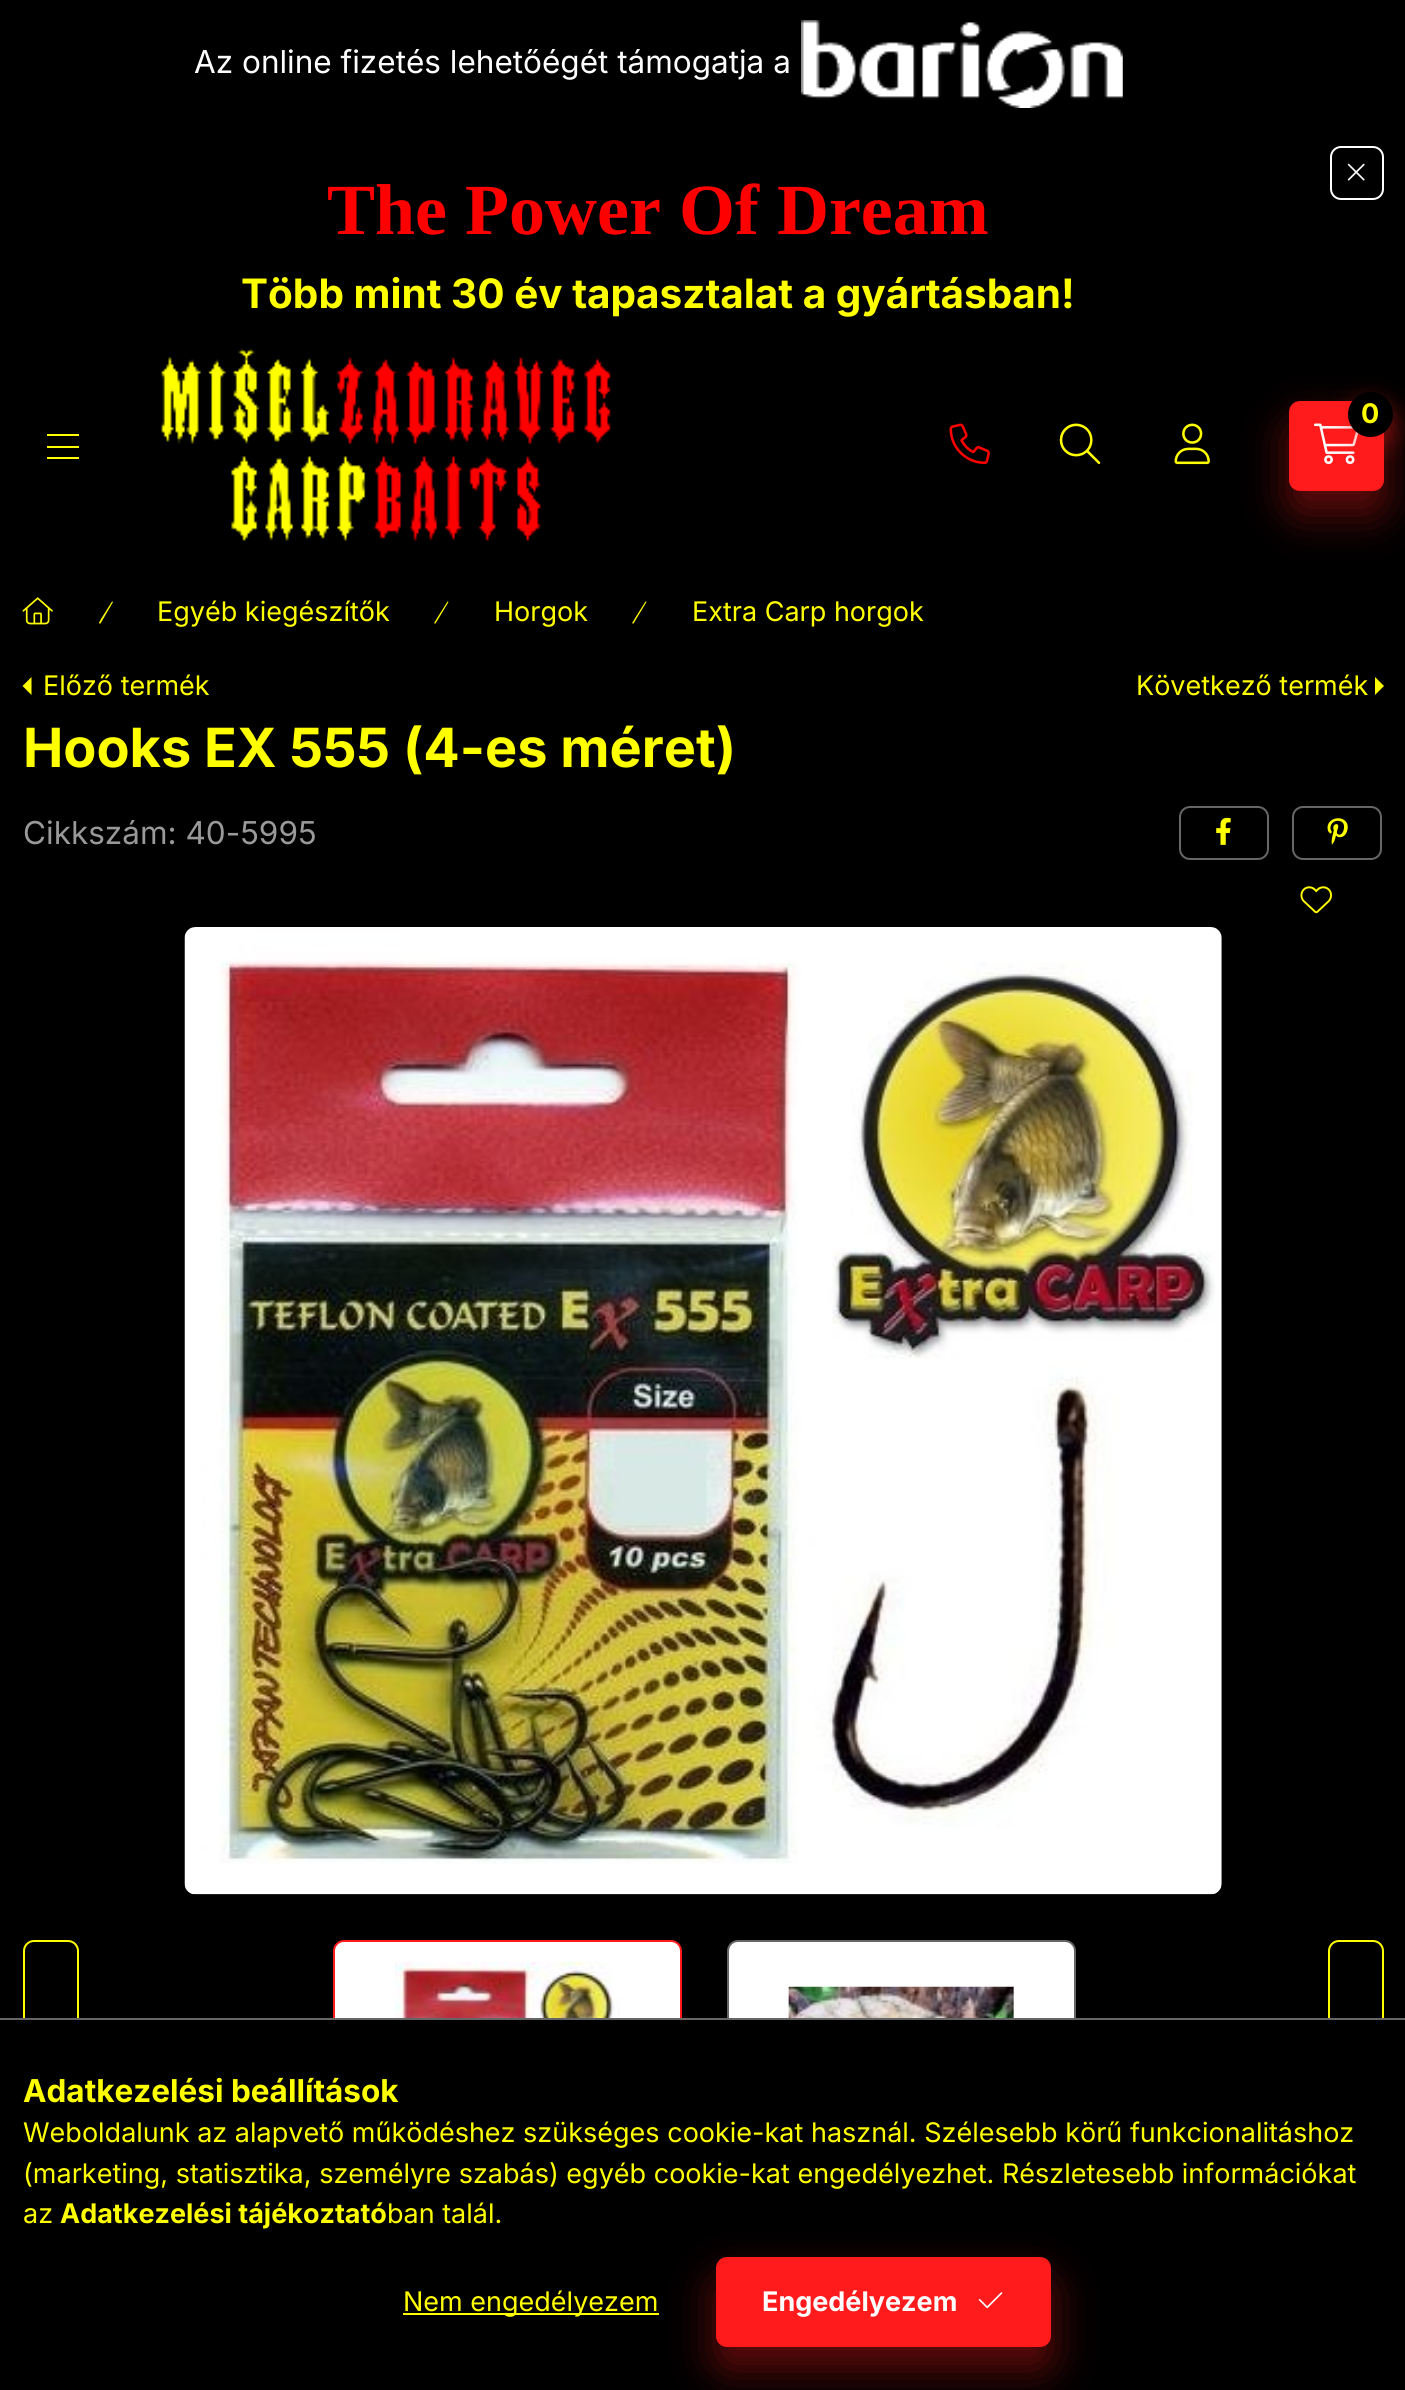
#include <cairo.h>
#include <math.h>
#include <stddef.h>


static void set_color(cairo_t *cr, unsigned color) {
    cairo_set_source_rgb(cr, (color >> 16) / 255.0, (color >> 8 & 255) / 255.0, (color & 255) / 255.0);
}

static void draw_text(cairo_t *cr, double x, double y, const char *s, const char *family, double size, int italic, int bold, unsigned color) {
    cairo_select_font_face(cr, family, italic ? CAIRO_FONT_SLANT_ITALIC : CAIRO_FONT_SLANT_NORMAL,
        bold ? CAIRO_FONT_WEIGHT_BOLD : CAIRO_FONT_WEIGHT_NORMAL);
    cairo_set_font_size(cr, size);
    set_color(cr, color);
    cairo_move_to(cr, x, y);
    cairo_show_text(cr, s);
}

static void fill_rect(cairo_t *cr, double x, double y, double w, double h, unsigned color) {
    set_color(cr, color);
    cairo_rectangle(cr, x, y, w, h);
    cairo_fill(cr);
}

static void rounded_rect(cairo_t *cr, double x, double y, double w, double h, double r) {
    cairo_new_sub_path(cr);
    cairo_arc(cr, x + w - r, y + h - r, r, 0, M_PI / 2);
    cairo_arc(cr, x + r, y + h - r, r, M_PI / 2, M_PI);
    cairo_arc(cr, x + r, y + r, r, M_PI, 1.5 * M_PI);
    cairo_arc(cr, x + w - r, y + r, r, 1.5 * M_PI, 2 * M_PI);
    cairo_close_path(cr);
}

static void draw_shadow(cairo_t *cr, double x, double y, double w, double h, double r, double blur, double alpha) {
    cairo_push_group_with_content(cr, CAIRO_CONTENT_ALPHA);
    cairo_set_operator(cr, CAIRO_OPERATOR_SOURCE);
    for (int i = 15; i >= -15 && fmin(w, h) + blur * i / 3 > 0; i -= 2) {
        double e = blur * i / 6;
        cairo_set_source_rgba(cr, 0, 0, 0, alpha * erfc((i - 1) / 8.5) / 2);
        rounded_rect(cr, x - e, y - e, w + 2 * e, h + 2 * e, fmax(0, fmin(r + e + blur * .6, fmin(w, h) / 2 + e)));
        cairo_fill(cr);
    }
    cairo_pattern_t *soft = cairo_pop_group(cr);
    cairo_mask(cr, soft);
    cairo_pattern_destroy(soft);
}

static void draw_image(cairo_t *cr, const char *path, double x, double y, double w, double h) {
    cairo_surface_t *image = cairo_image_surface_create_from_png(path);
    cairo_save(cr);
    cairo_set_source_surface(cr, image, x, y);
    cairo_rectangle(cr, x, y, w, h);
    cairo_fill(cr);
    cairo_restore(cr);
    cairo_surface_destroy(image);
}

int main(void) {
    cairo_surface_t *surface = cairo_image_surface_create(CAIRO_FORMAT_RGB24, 1405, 2390);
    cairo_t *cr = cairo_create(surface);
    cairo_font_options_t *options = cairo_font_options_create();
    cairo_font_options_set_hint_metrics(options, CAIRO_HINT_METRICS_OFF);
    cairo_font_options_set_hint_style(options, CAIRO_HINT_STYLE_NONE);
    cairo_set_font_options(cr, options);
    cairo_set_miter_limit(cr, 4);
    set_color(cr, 0x000000);
    cairo_paint(cr);
    draw_text(cr, 194, 73, "Az online fizetés lehetőégét támogatja a", "Inter", 31.5, 0, 0, 0xFFFFFF);
    draw_image(cr, "assets/img1.png", 801, 20, 322, 88);
    rounded_rect(cr, 1331, 147, 52, 52, 10);
    cairo_stroke(cr);
    draw_image(cr, "assets/img2.png", 1347, 163, 18, 18);
    draw_text(cr, 327, 234, "The Power Of Dream", "Liberation Serif", 72, 0, 1, 0xFF0000);
    draw_text(cr, 241, 308, "Több mint 30 év tapasztalat a gyártásban!", "Inter", 40.5, 0, 1, 0xFFFF00);
    fill_rect(cr, 47, 434, 32, 2, 0xFFFF00);
    fill_rect(cr, 47, 446, 32, 2, 0xFFFF00);
    fill_rect(cr, 47, 457, 32, 2, 0xFFFF00);
    draw_image(cr, "assets/img3.png", 161, 348, 450, 193);
    draw_image(cr, "assets/img4.png", 949, 423, 41, 42);
    set_color(cr, 0xFF1B1B);
    draw_shadow(cr, 1289, 423, 95, 90, 11, 22.5, 0.4);
    set_color(cr, 0xFF1B1B);
    rounded_rect(cr, 1289, 401, 95, 90, 11);
    cairo_fill(cr);
    draw_image(cr, "assets/img5.png", 1314, 423, 45, 42);
    set_color(cr, 0xFF1B1B);
    draw_shadow(cr, 1348, 403, 45, 45, 22.5, 11, 0.4);
    set_color(cr, 0x000000);
    cairo_arc(cr, 1370.5, 414.5, 22.5, 0, 2 * M_PI);
    cairo_fill(cr);
    draw_text(cr, 1361, 423, "0", "Inter", 27, 0, 1, 0xFFFF00);
    draw_image(cr, "assets/img6.png", 1059, 423, 42, 41);
    draw_image(cr, "assets/img7.png", 1174, 423, 36, 42);
    draw_image(cr, "assets/img8.png", 22, 597, 31, 28);
    cairo_new_path(cr);
    cairo_move_to(cr, 112.5, 601.5);
    cairo_line_to(cr, 112, 601.5);
    cairo_line_to(cr, 101, 619);
    cairo_curve_to(cr, 100.5, 620.5, 98, 623, 99.5, 623.5);
    cairo_line_to(cr, 100.5, 623.5);
    cairo_line_to(cr, 113, 602);
    cairo_close_path(cr);
    cairo_fill(cr);
    draw_text(cr, 157, 621, "Egyéb kiegészítők", "Inter", 27, 0, 0, 0xFFFF00);
    cairo_new_path(cr);
    cairo_move_to(cr, 448, 601.5);
    cairo_line_to(cr, 447.5, 601.5);
    cairo_line_to(cr, 436.5, 619);
    cairo_curve_to(cr, 436, 620.5, 433.5, 623, 434.5, 623.5);
    cairo_line_to(cr, 435.5, 623.5);
    cairo_line_to(cr, 448.5, 602);
    cairo_close_path(cr);
    cairo_fill(cr);
    draw_text(cr, 494, 621, "Horgok", "Inter", 27, 0, 0, 0xFFFF00);
    cairo_new_path(cr);
    cairo_move_to(cr, 646, 601.5);
    cairo_line_to(cr, 645.5, 601.5);
    cairo_line_to(cr, 634.5, 619);
    cairo_curve_to(cr, 634, 620.5, 631.5, 623, 632.5, 623.5);
    cairo_line_to(cr, 633.5, 623.5);
    cairo_line_to(cr, 646.5, 602);
    cairo_close_path(cr);
    cairo_fill(cr);
    draw_text(cr, 692, 621, "Extra Carp horgok", "Inter", 27, 0, 0, 0xFFFF00);
    cairo_new_path(cr);
    cairo_move_to(cr, 31.5, 695);
    cairo_line_to(cr, 31.5, 677);
    cairo_line_to(cr, 22.5, 686);
    cairo_close_path(cr);
    cairo_fill(cr);
    draw_text(cr, 43, 695, "Előző termék", "Inter", 27, 0, 0, 0xFFFF00);
    draw_text(cr, 1136, 695, "Következő termék", "Inter", 27, 0, 0, 0xFFFF00);
    cairo_new_path(cr);
    cairo_move_to(cr, 1375, 695);
    cairo_line_to(cr, 1375, 677);
    cairo_line_to(cr, 1384, 686);
    cairo_close_path(cr);
    cairo_fill(cr);
    draw_text(cr, 23, 767, "Hooks EX 555 (4-es méret)", "Inter", 54, 0, 1, 0xFFFF00);
    draw_text(cr, 23, 844, "Cikkszám: 40-5995", "Inter", 31.5, 0, 0, 0x999999);
    rounded_rect(cr, 1180, 807, 88, 52, 10);
    set_color(cr, 0x666666);
    cairo_stroke(cr);
    draw_image(cr, "assets/img9.png", 1216, 817, 15, 28);
    rounded_rect(cr, 1293, 807, 88, 52, 10);
    cairo_stroke(cr);
    draw_image(cr, "assets/img10.png", 1327, 818, 21, 27);
    draw_image(cr, "assets/img11.png", 1300, 886, 32, 28);
    draw_image(cr, "assets/img12.png", 184, 927, 1038, 968);
    rounded_rect(cr, 24, 1941, 54, 252, 10);
    set_color(cr, 0xFFFF00);
    cairo_stroke(cr);
    set_color(cr, 0xFFFFFF);
    rounded_rect(cr, 334, 1941, 347, 252, 10);
    cairo_fill_preserve(cr);
    set_color(cr, 0xFF1B1B);
    cairo_stroke(cr);
    draw_image(cr, "assets/img13.png", 395, 1962, 225, 56);
    set_color(cr, 0xFFFFFF);
    rounded_rect(cr, 728, 1941, 347, 252, 10);
    cairo_fill_preserve(cr);
    set_color(cr, 0x666666);
    cairo_stroke(cr);
    draw_image(cr, "assets/img14.png", 788, 1986, 226, 32);
    rounded_rect(cr, 1329, 1941, 54, 252, 10);
    set_color(cr, 0xFFFF00);
    cairo_stroke(cr);
    fill_rect(cr, 23, 2020, 1361, 174, 0x000000);
    fill_rect(cr, 0, 2018, 1405, 2, 0x666666);
    draw_text(cr, 23, 2102, "Adatkezelési beállítások", "Inter", 31.5, 0, 1, 0xFFFF00);
    draw_text(cr, 23, 2142, "Weboldalunk az alapvető működéshez szükséges cookie-kat használ. Szélesebb körű funkcionalitáshoz", "Inter", 27, 0, 0, 0xFFFF00);
    draw_text(cr, 23, 2183, "(marketing, statisztika, személyre szabás) egyéb cookie-kat engedélyezhet. Részletesebb információkat", "Inter", 27, 0, 0, 0xFFFF00);
    draw_text(cr, 23, 2223, "az", "Inter", 27, 0, 0, 0xFFFF00);
    draw_text(cr, 60, 2223, "Adatkezelési tájékoztató", "Inter", 27, 0, 1, 0xFFFF00);
    draw_text(cr, 387, 2223, "ban talál.", "Inter", 27, 0, 0, 0xFFFF00);
    fill_rect(cr, 403, 2313, 256, 2, 0xFFFF00);
    draw_text(cr, 403, 2311, "Nem engedélyezem", "Inter", 27, 0, 0, 0xFFFF00);
    set_color(cr, 0xFF1B1B);
    draw_shadow(cr, 716, 2279, 335, 90, 11, 22.5, 0.4);
    set_color(cr, 0xFF1B1B);
    rounded_rect(cr, 717, 2258, 333, 88, 10);
    cairo_fill_preserve(cr);
    cairo_stroke(cr);
    draw_text(cr, 762, 2311, "Engedélyezem", "Inter", 27, 0, 1, 0xFFFFFF);
    draw_image(cr, "assets/img15.png", 978, 2292, 25, 17);
    cairo_surface_write_to_png(surface, "output.png");
    cairo_font_options_destroy(options);
    cairo_destroy(cr);
    cairo_surface_destroy(surface);
    return 0;
}
